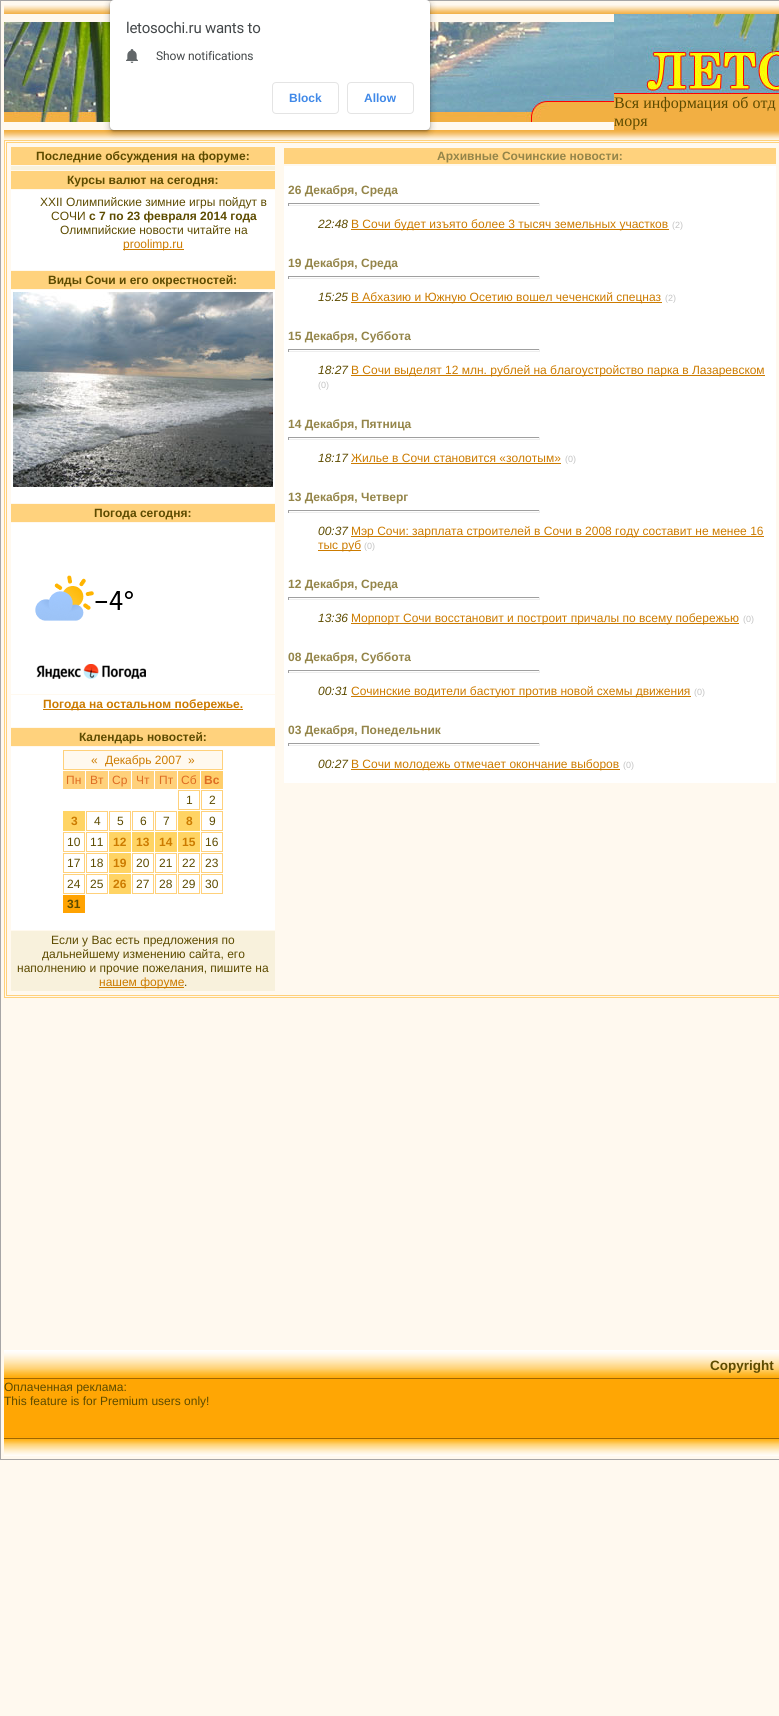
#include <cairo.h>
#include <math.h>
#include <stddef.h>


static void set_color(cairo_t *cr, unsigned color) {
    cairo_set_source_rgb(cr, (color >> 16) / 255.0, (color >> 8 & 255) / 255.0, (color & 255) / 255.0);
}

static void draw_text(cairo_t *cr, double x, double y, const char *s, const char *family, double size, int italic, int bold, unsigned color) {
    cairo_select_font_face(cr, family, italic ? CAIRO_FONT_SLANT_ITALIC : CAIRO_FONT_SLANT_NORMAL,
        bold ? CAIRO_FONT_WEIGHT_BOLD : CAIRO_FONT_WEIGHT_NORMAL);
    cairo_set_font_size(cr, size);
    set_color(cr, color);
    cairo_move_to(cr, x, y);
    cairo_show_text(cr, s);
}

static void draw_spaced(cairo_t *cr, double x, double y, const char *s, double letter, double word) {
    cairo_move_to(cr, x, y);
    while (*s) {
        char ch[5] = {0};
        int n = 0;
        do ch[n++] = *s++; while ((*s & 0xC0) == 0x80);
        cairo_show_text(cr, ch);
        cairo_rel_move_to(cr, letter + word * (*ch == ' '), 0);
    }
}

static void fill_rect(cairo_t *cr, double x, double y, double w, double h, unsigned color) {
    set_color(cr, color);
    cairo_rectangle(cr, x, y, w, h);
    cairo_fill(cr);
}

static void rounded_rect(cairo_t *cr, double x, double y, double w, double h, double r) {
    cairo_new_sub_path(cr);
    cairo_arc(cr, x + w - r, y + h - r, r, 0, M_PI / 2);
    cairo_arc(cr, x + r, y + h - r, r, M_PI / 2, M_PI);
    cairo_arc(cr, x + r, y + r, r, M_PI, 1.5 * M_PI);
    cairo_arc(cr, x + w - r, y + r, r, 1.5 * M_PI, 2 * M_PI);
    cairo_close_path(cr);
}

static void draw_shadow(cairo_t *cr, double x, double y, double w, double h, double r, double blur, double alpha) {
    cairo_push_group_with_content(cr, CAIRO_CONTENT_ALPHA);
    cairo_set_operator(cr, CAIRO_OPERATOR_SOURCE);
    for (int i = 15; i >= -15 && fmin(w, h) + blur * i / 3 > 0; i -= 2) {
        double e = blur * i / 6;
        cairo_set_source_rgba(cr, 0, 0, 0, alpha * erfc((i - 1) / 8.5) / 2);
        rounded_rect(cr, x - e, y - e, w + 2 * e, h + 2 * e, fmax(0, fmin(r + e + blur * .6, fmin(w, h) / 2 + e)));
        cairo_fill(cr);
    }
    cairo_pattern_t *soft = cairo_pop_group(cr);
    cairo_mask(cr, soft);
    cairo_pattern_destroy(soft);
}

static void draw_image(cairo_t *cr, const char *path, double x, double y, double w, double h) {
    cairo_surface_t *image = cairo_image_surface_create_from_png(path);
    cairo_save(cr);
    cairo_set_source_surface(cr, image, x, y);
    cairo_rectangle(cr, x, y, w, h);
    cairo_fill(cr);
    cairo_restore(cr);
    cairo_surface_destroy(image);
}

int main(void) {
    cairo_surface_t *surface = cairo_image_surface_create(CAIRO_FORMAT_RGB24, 779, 1716);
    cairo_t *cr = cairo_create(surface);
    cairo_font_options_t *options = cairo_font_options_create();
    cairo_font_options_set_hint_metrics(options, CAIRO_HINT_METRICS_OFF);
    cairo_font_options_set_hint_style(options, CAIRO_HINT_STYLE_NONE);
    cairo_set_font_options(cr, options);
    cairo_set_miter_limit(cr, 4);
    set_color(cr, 0xFFF9EF);
    cairo_paint(cr);
    cairo_rectangle(cr, 0.5, 0.5, 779, 1459);
    set_color(cr, 0xA7A6A6);
    cairo_set_line_width(cr, 1);
    cairo_stroke(cr);
    draw_image(cr, "assets/img2.png", 4, 5, 775, 9);
    draw_image(cr, "assets/img3.png", 4, 22, 106, 100);
    draw_image(cr, "assets/img4.png", 430, 22, 184, 100);
    draw_image(cr, "assets/img6.png", 4, 130, 775, 10);
    cairo_rectangle(cr, 4.5, 140.5, 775, 857);
    set_color(cr, 0xFFD17B);
    cairo_stroke(cr);
    cairo_rectangle(cr, 6.5, 142.5, 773, 853);
    cairo_stroke(cr);
    set_color(cr, 0x000000);
    draw_shadow(cr, 108, 0, 324, 134, 6, 3, 0.15);
    draw_shadow(cr, 110, 1, 320, 130, 4, 1, 0.3);
    set_color(cr, 0xFFFFFF);
    rounded_rect(cr, 110, 0, 320, 130, 4);
    cairo_fill(cr);
    cairo_select_font_face(cr, "Roboto", CAIRO_FONT_SLANT_NORMAL, CAIRO_FONT_WEIGHT_NORMAL);
    cairo_set_font_size(cr, 15);
    set_color(cr, 0x434749);
    draw_spaced(cr, 126, 33, "letosochi.ru wants to", -0.25, 0);
    draw_image(cr, "assets/img1.png", 126, 49, 12, 14);
    cairo_set_font_size(cr, 12);
    draw_spaced(cr, 156, 60, "Show notifications", -0.1, 0);
    rounded_rect(cr, 272.5, 82.5, 66, 31, 3.5);
    set_color(cr, 0xE4E4E4);
    cairo_stroke(cr);
    draw_text(cr, 289, 102, "Block", "Liberation Sans", 12, 0, 1, 0x4089E8);
    rounded_rect(cr, 347.5, 82.5, 66, 31, 3.5);
    set_color(cr, 0xE4E4E4);
    cairo_stroke(cr);
    draw_text(cr, 364, 102, "Allow", "Liberation Sans", 12, 0, 1, 0x4089E8);
    draw_image(cr, "assets/img5.png", 614, 14, 165, 80);
    fill_rect(cr, 614, 94, 165, 36, 0xF2AF43);
    draw_text(cr, 614, 108, "Вся информация об отд", "Liberation Serif", 16, 0, 0, 0x5D4B00);
    draw_text(cr, 614, 126, "моря", "Liberation Serif", 16, 0, 0, 0x5D4B00);
    fill_rect(cr, 11, 147, 264, 18, 0xFFD27D);
    draw_text(cr, 36, 160, "Последние обсуждения на форуме:", "Liberation Sans", 12, 0, 1, 0x5D4B00);
    fill_rect(cr, 11, 166, 264, 4, 0xF8F1DC);
    fill_rect(cr, 11, 171, 264, 18, 0xFFD27D);
    draw_text(cr, 67, 184, "Курсы валют на сегодня:", "Liberation Sans", 12, 0, 1, 0x5D4B00);
    fill_rect(cr, 11, 190, 264, 80, 0xFFFFFF);
    draw_text(cr, 40, 206, "XXII Олимпийские зимние игры пойдут в", "Liberation Sans", 12, 0, 0, 0x5D4B00);
    draw_text(cr, 51, 220, "СОЧИ", "Liberation Sans", 12, 0, 0, 0x5D4B00);
    draw_text(cr, 89, 220, "с 7 по 23 февраля 2014 года", "Liberation Sans", 12, 0, 1, 0x5D4B00);
    draw_text(cr, 60, 234, "Олимпийские новости читайте на", "Liberation Sans", 12, 0, 0, 0x5D4B00);
    fill_rect(cr, 123, 249, 61, 1, 0xCC7B00);
    draw_text(cr, 123, 248, "proolimp.ru", "Liberation Sans", 12, 0, 0, 0xCC7B00);
    fill_rect(cr, 11, 271, 264, 18, 0xFFD27D);
    draw_text(cr, 48, 284, "Виды Сочи и его окрестностей:", "Liberation Sans", 12, 0, 1, 0x5D4B00);
    fill_rect(cr, 11, 290, 264, 213, 0xFFFFFF);
    draw_image(cr, "assets/img7.png", 13, 292, 260, 195);
    fill_rect(cr, 11, 504, 264, 18, 0xFFD27D);
    draw_text(cr, 94, 517, "Погода сегодня:", "Liberation Sans", 12, 0, 1, 0x5D4B00);
    fill_rect(cr, 11, 523, 264, 171, 0xFFFFFF);
    draw_image(cr, "assets/img8.png", 35, 575, 111, 104);
    fill_rect(cr, 11, 695, 264, 32, 0xFFFFFF);
    fill_rect(cr, 43, 709, 200, 1, 0xCC7B00);
    draw_text(cr, 43, 708, "Погода на остальном побережье.", "Liberation Sans", 12, 0, 1, 0xCC7B00);
    fill_rect(cr, 11, 728, 264, 18, 0xFFD27D);
    draw_text(cr, 79, 741, "Календарь новостей:", "Liberation Sans", 12, 0, 1, 0x5D4B00);
    fill_rect(cr, 11, 747, 264, 183, 0xFFFFFF);
    set_color(cr, 0xFFF9EF);
    cairo_rectangle(cr, 63.5, 750.5, 159, 19);
    cairo_fill_preserve(cr);
    set_color(cr, 0xFFD17B);
    cairo_stroke(cr);
    draw_text(cr, 91, 764, "«", "Liberation Sans", 12, 0, 0, 0xCC7B00);
    draw_text(cr, 105, 764, "Декабрь 2007", "Liberation Sans", 12, 0, 0, 0xCC7B00);
    draw_text(cr, 188, 764, "»", "Liberation Sans", 12, 0, 0, 0xCC7B00);
    fill_rect(cr, 63, 771, 22, 18, 0xFFD17B);
    draw_text(cr, 66, 784, "Пн", "Liberation Sans", 12, 0, 0, 0xDE6C22);
    fill_rect(cr, 86, 771, 22, 18, 0xFFD17B);
    draw_text(cr, 90, 784, "Вт", "Liberation Sans", 12, 0, 0, 0xDE6C22);
    fill_rect(cr, 109, 771, 22, 18, 0xFFD17B);
    draw_text(cr, 112, 784, "Ср", "Liberation Sans", 12, 0, 0, 0xDE6C22);
    fill_rect(cr, 132, 771, 22, 18, 0xFFD17B);
    draw_text(cr, 136, 784, "Чт", "Liberation Sans", 12, 0, 0, 0xDE6C22);
    fill_rect(cr, 155, 771, 22, 18, 0xFFD17B);
    draw_text(cr, 159, 784, "Пт", "Liberation Sans", 12, 0, 0, 0xDE6C22);
    fill_rect(cr, 178, 771, 22, 18, 0xFFCE6B);
    draw_text(cr, 181, 784, "Сб", "Liberation Sans", 12, 0, 0, 0xDE6C22);
    fill_rect(cr, 201, 771, 22, 18, 0xFFCE6B);
    draw_text(cr, 204, 784, "Вс", "Liberation Sans", 12, 0, 1, 0xDE6C22);
    cairo_rectangle(cr, 178.5, 790.5, 21, 19);
    set_color(cr, 0xFFD17B);
    cairo_stroke(cr);
    draw_text(cr, 186, 804, "1", "Liberation Sans", 12, 0, 0, 0x5D4B00);
    cairo_rectangle(cr, 201.5, 790.5, 21, 19);
    set_color(cr, 0xFFD17B);
    cairo_stroke(cr);
    draw_text(cr, 209, 804, "2", "Liberation Sans", 12, 0, 0, 0x5D4B00);
    fill_rect(cr, 63, 811, 22, 20, 0xFFD464);
    draw_text(cr, 71, 825, "3", "Liberation Sans", 12, 0, 1, 0xCC7B00);
    cairo_rectangle(cr, 86.5, 811.5, 21, 19);
    set_color(cr, 0xFFD17B);
    cairo_stroke(cr);
    draw_text(cr, 94, 825, "4", "Liberation Sans", 12, 0, 0, 0x5D4B00);
    cairo_rectangle(cr, 109.5, 811.5, 21, 19);
    set_color(cr, 0xFFD17B);
    cairo_stroke(cr);
    draw_text(cr, 117, 825, "5", "Liberation Sans", 12, 0, 0, 0x5D4B00);
    cairo_rectangle(cr, 132.5, 811.5, 21, 19);
    set_color(cr, 0xFFD17B);
    cairo_stroke(cr);
    draw_text(cr, 140, 825, "6", "Liberation Sans", 12, 0, 0, 0x5D4B00);
    cairo_rectangle(cr, 155.5, 811.5, 21, 19);
    set_color(cr, 0xFFD17B);
    cairo_stroke(cr);
    draw_text(cr, 163, 825, "7", "Liberation Sans", 12, 0, 0, 0x5D4B00);
    fill_rect(cr, 178, 811, 22, 20, 0xFFD464);
    draw_text(cr, 186, 825, "8", "Liberation Sans", 12, 0, 1, 0xCC7B00);
    cairo_rectangle(cr, 201.5, 811.5, 21, 19);
    set_color(cr, 0xFFD17B);
    cairo_stroke(cr);
    draw_text(cr, 209, 825, "9", "Liberation Sans", 12, 0, 0, 0x5D4B00);
    cairo_rectangle(cr, 63.5, 832.5, 21, 19);
    set_color(cr, 0xFFD17B);
    cairo_stroke(cr);
    draw_text(cr, 67, 846, "10", "Liberation Sans", 12, 0, 0, 0x5D4B00);
    cairo_rectangle(cr, 86.5, 832.5, 21, 19);
    set_color(cr, 0xFFD17B);
    cairo_stroke(cr);
    draw_text(cr, 90, 846, "11", "Liberation Sans", 12, 0, 0, 0x5D4B00);
    fill_rect(cr, 109, 832, 22, 20, 0xFFD464);
    draw_text(cr, 113, 846, "12", "Liberation Sans", 12, 0, 1, 0xCC7B00);
    fill_rect(cr, 132, 832, 22, 20, 0xFFD464);
    draw_text(cr, 136, 846, "13", "Liberation Sans", 12, 0, 1, 0xCC7B00);
    fill_rect(cr, 155, 832, 22, 20, 0xFFD464);
    draw_text(cr, 159, 846, "14", "Liberation Sans", 12, 0, 1, 0xCC7B00);
    fill_rect(cr, 178, 832, 22, 20, 0xFFD464);
    draw_text(cr, 182, 846, "15", "Liberation Sans", 12, 0, 1, 0xCC7B00);
    cairo_rectangle(cr, 201.5, 832.5, 21, 19);
    set_color(cr, 0xFFD17B);
    cairo_stroke(cr);
    draw_text(cr, 205, 846, "16", "Liberation Sans", 12, 0, 0, 0x5D4B00);
    cairo_rectangle(cr, 63.5, 853.5, 21, 19);
    set_color(cr, 0xFFD17B);
    cairo_stroke(cr);
    draw_text(cr, 67, 867, "17", "Liberation Sans", 12, 0, 0, 0x5D4B00);
    cairo_rectangle(cr, 86.5, 853.5, 21, 19);
    set_color(cr, 0xFFD17B);
    cairo_stroke(cr);
    draw_text(cr, 90, 867, "18", "Liberation Sans", 12, 0, 0, 0x5D4B00);
    fill_rect(cr, 109, 853, 22, 20, 0xFFD464);
    draw_text(cr, 113, 867, "19", "Liberation Sans", 12, 0, 1, 0xCC7B00);
    cairo_rectangle(cr, 132.5, 853.5, 21, 19);
    set_color(cr, 0xFFD17B);
    cairo_stroke(cr);
    draw_text(cr, 136, 867, "20", "Liberation Sans", 12, 0, 0, 0x5D4B00);
    cairo_rectangle(cr, 155.5, 853.5, 21, 19);
    set_color(cr, 0xFFD17B);
    cairo_stroke(cr);
    draw_text(cr, 159, 867, "21", "Liberation Sans", 12, 0, 0, 0x5D4B00);
    cairo_rectangle(cr, 178.5, 853.5, 21, 19);
    set_color(cr, 0xFFD17B);
    cairo_stroke(cr);
    draw_text(cr, 182, 867, "22", "Liberation Sans", 12, 0, 0, 0x5D4B00);
    cairo_rectangle(cr, 201.5, 853.5, 21, 19);
    set_color(cr, 0xFFD17B);
    cairo_stroke(cr);
    draw_text(cr, 205, 867, "23", "Liberation Sans", 12, 0, 0, 0x5D4B00);
    cairo_rectangle(cr, 63.5, 874.5, 21, 19);
    set_color(cr, 0xFFD17B);
    cairo_stroke(cr);
    draw_text(cr, 67, 888, "24", "Liberation Sans", 12, 0, 0, 0x5D4B00);
    cairo_rectangle(cr, 86.5, 874.5, 21, 19);
    set_color(cr, 0xFFD17B);
    cairo_stroke(cr);
    draw_text(cr, 90, 888, "25", "Liberation Sans", 12, 0, 0, 0x5D4B00);
    fill_rect(cr, 109, 874, 22, 20, 0xFFD464);
    draw_text(cr, 113, 888, "26", "Liberation Sans", 12, 0, 1, 0xCC7B00);
    cairo_rectangle(cr, 132.5, 874.5, 21, 19);
    set_color(cr, 0xFFD17B);
    cairo_stroke(cr);
    draw_text(cr, 136, 888, "27", "Liberation Sans", 12, 0, 0, 0x5D4B00);
    cairo_rectangle(cr, 155.5, 874.5, 21, 19);
    set_color(cr, 0xFFD17B);
    cairo_stroke(cr);
    draw_text(cr, 159, 888, "28", "Liberation Sans", 12, 0, 0, 0x5D4B00);
    cairo_rectangle(cr, 178.5, 874.5, 21, 19);
    set_color(cr, 0xFFD17B);
    cairo_stroke(cr);
    draw_text(cr, 182, 888, "29", "Liberation Sans", 12, 0, 0, 0x5D4B00);
    cairo_rectangle(cr, 201.5, 874.5, 21, 19);
    set_color(cr, 0xFFD17B);
    cairo_stroke(cr);
    draw_text(cr, 205, 888, "30", "Liberation Sans", 12, 0, 0, 0x5D4B00);
    fill_rect(cr, 63, 895, 22, 18, 0xFFA302);
    draw_text(cr, 67, 908, "31", "Liberation Sans", 12, 0, 1, 0x5D4B00);
    fill_rect(cr, 11, 931, 264, 60, 0xF8F1DC);
    draw_text(cr, 51, 944, "Если у Вас есть предложения по", "Liberation Sans", 12, 0, 0, 0x5D4B00);
    draw_text(cr, 42, 958, "дальнейшему изменению сайта, его", "Liberation Sans", 12, 0, 0, 0x5D4B00);
    draw_text(cr, 17, 972, "наполнению и прочие пожелания, пишите на", "Liberation Sans", 12, 0, 0, 0x5D4B00);
    fill_rect(cr, 99, 987, 85, 1, 0xCC7B00);
    draw_text(cr, 99, 986, "нашем форуме", "Liberation Sans", 12, 0, 0, 0xCC7B00);
    draw_text(cr, 184, 986, ".", "Liberation Sans", 12, 0, 0, 0x5D4B00);
    fill_rect(cr, 284, 148, 492, 16, 0xFFD27D);
    draw_text(cr, 437, 160, "Архивные Сочинские новости:", "Liberation Sans", 12, 0, 1, 0x948549);
    fill_rect(cr, 284, 166, 492, 617, 0xFFFFFF);
    draw_text(cr, 288, 194, "26 Декабря, Среда", "Liberation Sans", 12, 0, 1, 0x948549);
    fill_rect(cr, 288, 203, 252, 1, 0x9F9F9F);
    fill_rect(cr, 539, 203, 1, 3, 0xEEEEEE);
    fill_rect(cr, 288, 205, 252, 1, 0xEEEEEE);
    fill_rect(cr, 288, 203, 1, 3, 0x9F9F9F);
    draw_text(cr, 318, 228, "22:48", "Liberation Sans", 12, 1, 0, 0x5D4B00);
    fill_rect(cr, 351, 229, 318, 1, 0xCC7B00);
    draw_text(cr, 351, 228, "В Сочи будет изъято более 3 тысяч земельных участков", "Liberation Sans", 12, 0, 0, 0xCC7B00);
    draw_text(cr, 672, 228, "(2)", "Liberation Sans", 9, 0, 0, 0xC3C3C3);
    draw_text(cr, 288, 267, "19 Декабря, Среда", "Liberation Sans", 12, 0, 1, 0x948549);
    fill_rect(cr, 288, 276, 252, 1, 0x9F9F9F);
    fill_rect(cr, 539, 276, 1, 3, 0xEEEEEE);
    fill_rect(cr, 288, 278, 252, 1, 0xEEEEEE);
    fill_rect(cr, 288, 276, 1, 3, 0x9F9F9F);
    draw_text(cr, 318, 301, "15:25", "Liberation Sans", 12, 1, 0, 0x5D4B00);
    fill_rect(cr, 351, 302, 311, 1, 0xCC7B00);
    draw_text(cr, 351, 301, "В Абхазию и Южную Осетию вошел чеченский спецназ", "Liberation Sans", 12, 0, 0, 0xCC7B00);
    draw_text(cr, 665, 301, "(2)", "Liberation Sans", 9, 0, 0, 0xC3C3C3);
    draw_text(cr, 288, 340, "15 Декабря, Суббота", "Liberation Sans", 12, 0, 1, 0x948549);
    fill_rect(cr, 288, 349, 252, 1, 0x9F9F9F);
    fill_rect(cr, 539, 349, 1, 3, 0xEEEEEE);
    fill_rect(cr, 288, 351, 252, 1, 0xEEEEEE);
    fill_rect(cr, 288, 349, 1, 3, 0x9F9F9F);
    draw_text(cr, 318, 374, "18:27", "Liberation Sans", 12, 1, 0, 0x5D4B00);
    fill_rect(cr, 351, 375, 414, 1, 0xCC7B00);
    draw_text(cr, 351, 374, "В Сочи выделят 12 млн. рублей на благоустройство парка в Лазаревском", "Liberation Sans", 12, 0, 0, 0xCC7B00);
    draw_text(cr, 318, 388, "(0)", "Liberation Sans", 9, 0, 0, 0xC3C3C3);
    draw_text(cr, 288, 428, "14 Декабря, Пятница", "Liberation Sans", 12, 0, 1, 0x948549);
    fill_rect(cr, 288, 437, 252, 1, 0x9F9F9F);
    fill_rect(cr, 539, 437, 1, 3, 0xEEEEEE);
    fill_rect(cr, 288, 439, 252, 1, 0xEEEEEE);
    fill_rect(cr, 288, 437, 1, 3, 0x9F9F9F);
    draw_text(cr, 318, 462, "18:17", "Liberation Sans", 12, 1, 0, 0x5D4B00);
    draw_text(cr, 351, 462, "Жилье в Сочи становится «золотым»", "Liberation Sans", 12, 0, 0, 0xCC7B00);
    fill_rect(cr, 351, 463, 210, 1, 0xCC7B00);
    draw_text(cr, 565, 462, "(0)", "Liberation Sans", 9, 0, 0, 0xC3C3C3);
    draw_text(cr, 288, 501, "13 Декабря, Четверг", "Liberation Sans", 12, 0, 1, 0x948549);
    fill_rect(cr, 288, 510, 252, 1, 0x9F9F9F);
    fill_rect(cr, 539, 510, 1, 3, 0xEEEEEE);
    fill_rect(cr, 288, 512, 252, 1, 0xEEEEEE);
    fill_rect(cr, 288, 510, 1, 3, 0x9F9F9F);
    draw_text(cr, 318, 535, "00:37", "Liberation Sans", 12, 1, 0, 0x5D4B00);
    fill_rect(cr, 351, 536, 413, 1, 0xCC7B00);
    draw_text(cr, 351, 535, "Мэр Сочи: зарплата строителей в Сочи в 2008 году составит не менее 16", "Liberation Sans", 12, 0, 0, 0xCC7B00);
    fill_rect(cr, 318, 550, 43, 1, 0xCC7B00);
    draw_text(cr, 318, 549, "тыс руб", "Liberation Sans", 12, 0, 0, 0xCC7B00);
    draw_text(cr, 364, 549, "(0)", "Liberation Sans", 9, 0, 0, 0xC3C3C3);
    draw_text(cr, 288, 588, "12 Декабря, Среда", "Liberation Sans", 12, 0, 1, 0x948549);
    fill_rect(cr, 288, 597, 252, 1, 0x9F9F9F);
    fill_rect(cr, 539, 597, 1, 3, 0xEEEEEE);
    fill_rect(cr, 288, 599, 252, 1, 0xEEEEEE);
    fill_rect(cr, 288, 597, 1, 3, 0x9F9F9F);
    draw_text(cr, 318, 622, "13:36", "Liberation Sans", 12, 1, 0, 0x5D4B00);
    fill_rect(cr, 351, 623, 388, 1, 0xCC7B00);
    draw_text(cr, 351, 622, "Морпорт Сочи восстановит и построит причалы по всему побережью", "Liberation Sans", 12, 0, 0, 0xCC7B00);
    draw_text(cr, 743, 622, "(0)", "Liberation Sans", 9, 0, 0, 0xC3C3C3);
    draw_text(cr, 288, 661, "08 Декабря, Суббота", "Liberation Sans", 12, 0, 1, 0x948549);
    fill_rect(cr, 288, 670, 252, 1, 0x9F9F9F);
    fill_rect(cr, 539, 670, 1, 3, 0xEEEEEE);
    fill_rect(cr, 288, 672, 252, 1, 0xEEEEEE);
    fill_rect(cr, 288, 670, 1, 3, 0x9F9F9F);
    draw_text(cr, 318, 695, "00:31", "Liberation Sans", 12, 1, 0, 0x5D4B00);
    fill_rect(cr, 351, 696, 340, 1, 0xCC7B00);
    draw_text(cr, 351, 695, "Сочинские водители бастуют против новой схемы движения", "Liberation Sans", 12, 0, 0, 0xCC7B00);
    draw_text(cr, 694, 695, "(0)", "Liberation Sans", 9, 0, 0, 0xC3C3C3);
    draw_text(cr, 288, 734, "03 Декабря, Понедельник", "Liberation Sans", 12, 0, 1, 0x948549);
    fill_rect(cr, 288, 743, 252, 1, 0x9F9F9F);
    fill_rect(cr, 539, 743, 1, 3, 0xEEEEEE);
    fill_rect(cr, 288, 745, 252, 1, 0xEEEEEE);
    fill_rect(cr, 288, 743, 1, 3, 0x9F9F9F);
    draw_text(cr, 318, 768, "00:27", "Liberation Sans", 12, 1, 0, 0x5D4B00);
    fill_rect(cr, 351, 769, 269, 1, 0xCC7B00);
    draw_text(cr, 351, 768, "В Сочи молодежь отмечает окончание выборов", "Liberation Sans", 12, 0, 0, 0xCC7B00);
    draw_text(cr, 623, 768, "(0)", "Liberation Sans", 9, 0, 0, 0xC3C3C3);
    draw_image(cr, "assets/img9.png", 4, 1350, 775, 30);
    draw_text(cr, 710, 1370, "Copyright", "Liberation Sans", 13.5, 0, 1, 0x5D4B00);
    fill_rect(cr, 4, 1380, 775, 56, 0xFFA604);
    draw_text(cr, 4, 1391, "Оплаченная реклама:", "Liberation Sans", 12, 0, 0, 0x5D4B00);
    draw_text(cr, 4, 1405, "This feature is for Premium users only!", "Liberation Sans", 12, 0, 0, 0x5D4B00);
    draw_image(cr, "assets/img10.png", 4, 1436, 775, 20);
    cairo_surface_write_to_png(surface, "output.png");
    cairo_font_options_destroy(options);
    cairo_destroy(cr);
    cairo_surface_destroy(surface);
    return 0;
}
